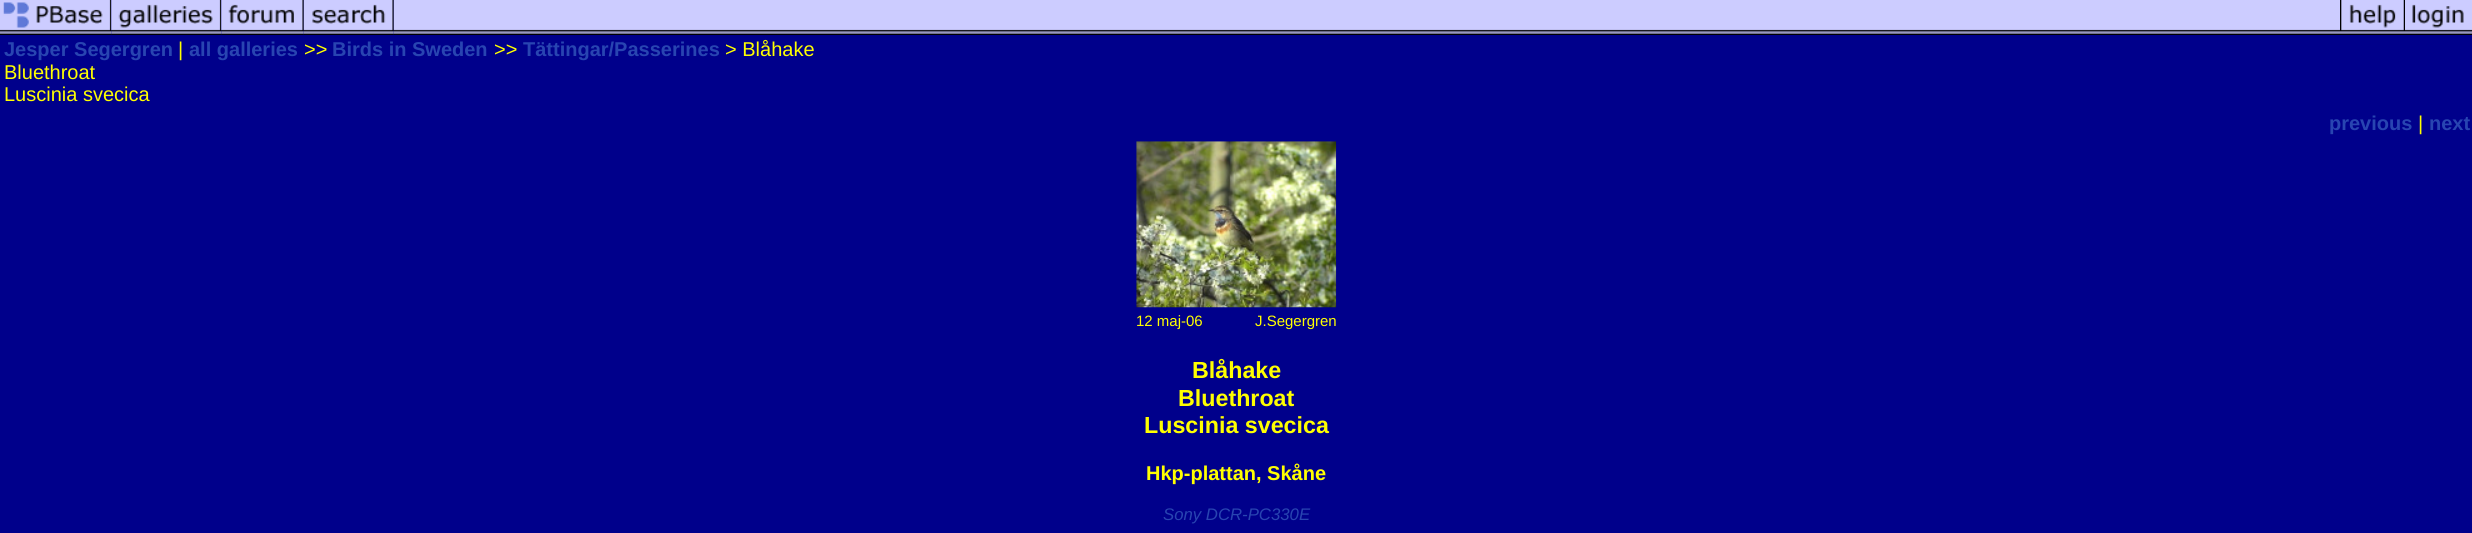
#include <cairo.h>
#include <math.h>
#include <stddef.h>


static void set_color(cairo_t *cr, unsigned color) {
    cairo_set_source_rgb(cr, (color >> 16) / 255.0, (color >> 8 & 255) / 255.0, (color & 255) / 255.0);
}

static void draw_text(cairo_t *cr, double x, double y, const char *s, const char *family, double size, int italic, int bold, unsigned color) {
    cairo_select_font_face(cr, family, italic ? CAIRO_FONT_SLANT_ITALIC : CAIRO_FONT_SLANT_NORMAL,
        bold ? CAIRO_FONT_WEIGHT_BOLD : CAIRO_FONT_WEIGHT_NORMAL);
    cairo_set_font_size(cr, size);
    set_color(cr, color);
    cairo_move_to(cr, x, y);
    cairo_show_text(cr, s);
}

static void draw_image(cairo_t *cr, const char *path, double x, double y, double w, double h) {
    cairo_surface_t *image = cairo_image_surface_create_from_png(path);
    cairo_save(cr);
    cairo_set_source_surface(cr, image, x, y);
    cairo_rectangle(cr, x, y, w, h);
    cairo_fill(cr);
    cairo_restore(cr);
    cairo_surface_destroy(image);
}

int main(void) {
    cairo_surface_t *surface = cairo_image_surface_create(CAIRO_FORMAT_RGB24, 2472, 533);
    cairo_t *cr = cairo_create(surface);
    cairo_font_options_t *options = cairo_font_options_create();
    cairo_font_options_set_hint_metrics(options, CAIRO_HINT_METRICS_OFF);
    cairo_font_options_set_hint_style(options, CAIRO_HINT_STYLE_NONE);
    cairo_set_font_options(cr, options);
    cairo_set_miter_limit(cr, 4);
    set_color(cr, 0x00008B);
    cairo_paint(cr);
    draw_image(cr, "assets/img1.png", 0, 0, 112, 35);
    draw_image(cr, "assets/img2.png", 111, 0, 111, 35);
    draw_image(cr, "assets/img3.png", 221, 0, 83, 35);
    draw_image(cr, "assets/img4.png", 303, 0, 91, 35);
    draw_image(cr, "assets/img5.png", 393, 0, 1947, 35);
    draw_image(cr, "assets/img6.png", 2340, 0, 65, 35);
    draw_image(cr, "assets/img7.png", 2405, 0, 67, 35);
    draw_text(cr, 4, 56, "Jesper Segergren", "Liberation Sans", 20, 0, 1, 0x2845B1);
    draw_text(cr, 178, 56, "|", "Liberation Sans", 20, 0, 0, 0xFFFF00);
    draw_text(cr, 189, 56, "all galleries", "Liberation Sans", 20, 0, 1, 0x2845B1);
    draw_text(cr, 304, 56, ">>", "Liberation Sans", 20, 0, 0, 0xFFFF00);
    draw_text(cr, 332, 56, "Birds in Sweden", "Liberation Sans", 20, 0, 1, 0x2845B1);
    draw_text(cr, 494, 56, ">>", "Liberation Sans", 20, 0, 0, 0xFFFF00);
    draw_text(cr, 523, 56, "Tättingar/Passerines", "Liberation Sans", 20, 0, 1, 0x2845B1);
    draw_text(cr, 725, 56, "> Blåhake", "Liberation Sans", 20, 0, 0, 0xFFFF00);
    draw_text(cr, 4, 79, "Bluethroat", "Liberation Sans", 20, 0, 0, 0xFFFF00);
    draw_text(cr, 4, 101, "Luscinia svecica", "Liberation Sans", 20, 0, 0, 0xFFFF00);
    draw_text(cr, 2329, 130, "previous", "Liberation Sans", 20, 0, 1, 0x2845B1);
    draw_text(cr, 2418, 130, "|", "Liberation Sans", 20, 0, 0, 0xFFFF00);
    draw_text(cr, 2429, 130, "next", "Liberation Sans", 20, 0, 1, 0x2845B1);
    draw_image(cr, "assets/img8.png", 1136, 141, 201, 167);
    draw_text(cr, 1136, 326, "12 maj-06", "Liberation Sans", 15, 0, 0, 0xFFFF00);
    draw_text(cr, 1255, 326, "J.Segergren", "Liberation Sans", 15, 0, 0, 0xFFFF00);
    draw_text(cr, 1192, 378, "Blåhake", "Liberation Sans", 23.25, 0, 1, 0xFFFF00);
    draw_text(cr, 1178, 406, "Bluethroat", "Liberation Sans", 23.25, 0, 1, 0xFFFF00);
    draw_text(cr, 1144, 433, "Luscinia svecica", "Liberation Sans", 23.25, 0, 1, 0xFFFF00);
    draw_text(cr, 1146, 480, "Hkp-plattan, Skåne", "Liberation Sans", 20, 0, 1, 0xFFFF00);
    draw_text(cr, 1163, 520, "Sony DCR-PC330E", "Liberation Sans", 16.75, 1, 0, 0x2845B1);
    cairo_surface_write_to_png(surface, "output.png");
    cairo_font_options_destroy(options);
    cairo_destroy(cr);
    cairo_surface_destroy(surface);
    return 0;
}
